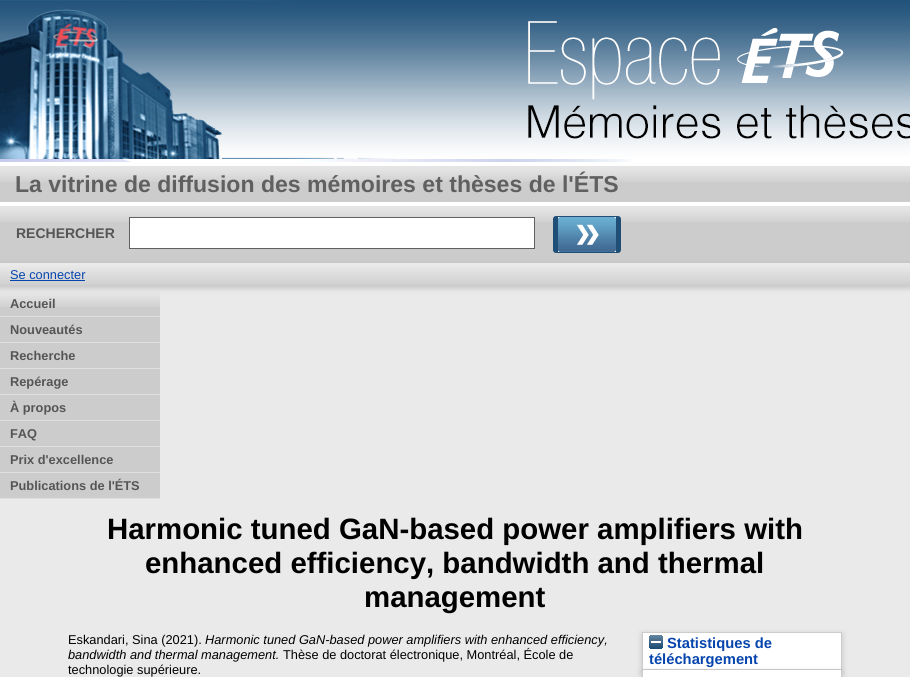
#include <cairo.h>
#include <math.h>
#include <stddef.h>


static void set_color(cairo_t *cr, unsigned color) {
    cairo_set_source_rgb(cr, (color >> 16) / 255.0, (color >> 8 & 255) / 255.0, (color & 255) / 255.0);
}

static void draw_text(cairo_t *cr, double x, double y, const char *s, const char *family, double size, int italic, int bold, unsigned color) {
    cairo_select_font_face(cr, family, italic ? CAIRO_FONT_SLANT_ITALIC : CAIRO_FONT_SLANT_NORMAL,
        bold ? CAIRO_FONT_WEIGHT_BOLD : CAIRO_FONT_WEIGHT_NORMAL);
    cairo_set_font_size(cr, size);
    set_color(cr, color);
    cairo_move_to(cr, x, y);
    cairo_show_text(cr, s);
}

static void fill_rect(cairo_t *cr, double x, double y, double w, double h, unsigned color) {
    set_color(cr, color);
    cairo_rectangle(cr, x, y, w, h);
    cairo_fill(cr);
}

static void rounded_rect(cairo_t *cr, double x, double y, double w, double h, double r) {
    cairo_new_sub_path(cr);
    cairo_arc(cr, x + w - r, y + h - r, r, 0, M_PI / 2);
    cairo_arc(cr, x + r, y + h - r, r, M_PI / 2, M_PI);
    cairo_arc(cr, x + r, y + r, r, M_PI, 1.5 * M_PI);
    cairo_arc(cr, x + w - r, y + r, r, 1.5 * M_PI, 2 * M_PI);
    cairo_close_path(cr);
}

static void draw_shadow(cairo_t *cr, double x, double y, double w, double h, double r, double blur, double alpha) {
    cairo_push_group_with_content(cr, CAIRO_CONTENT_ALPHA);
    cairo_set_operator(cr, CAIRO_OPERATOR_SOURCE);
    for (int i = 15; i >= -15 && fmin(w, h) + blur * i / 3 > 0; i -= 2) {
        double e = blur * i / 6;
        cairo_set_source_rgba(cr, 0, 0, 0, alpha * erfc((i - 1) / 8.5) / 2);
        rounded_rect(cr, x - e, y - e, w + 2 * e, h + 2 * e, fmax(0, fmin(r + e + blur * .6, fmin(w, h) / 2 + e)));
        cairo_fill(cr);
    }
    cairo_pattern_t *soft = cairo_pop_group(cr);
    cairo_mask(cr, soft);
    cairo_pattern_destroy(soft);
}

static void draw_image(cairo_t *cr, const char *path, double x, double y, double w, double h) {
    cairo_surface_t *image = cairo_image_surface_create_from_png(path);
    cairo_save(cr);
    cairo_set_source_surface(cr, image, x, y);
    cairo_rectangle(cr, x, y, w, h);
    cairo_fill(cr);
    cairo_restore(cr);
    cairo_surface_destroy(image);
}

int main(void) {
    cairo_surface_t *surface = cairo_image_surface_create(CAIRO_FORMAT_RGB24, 910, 677);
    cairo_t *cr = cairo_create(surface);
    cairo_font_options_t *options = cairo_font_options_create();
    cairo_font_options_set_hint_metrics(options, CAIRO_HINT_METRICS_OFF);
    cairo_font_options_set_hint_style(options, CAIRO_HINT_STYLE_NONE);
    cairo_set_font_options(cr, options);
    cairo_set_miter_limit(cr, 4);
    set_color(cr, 0xEAEAEA);
    cairo_paint(cr);
    fill_rect(cr, 0, 159, 910, 7, 0xFFFFFF);
    draw_image(cr, "assets/img1.png", 0, 159, 631, 3);
    draw_image(cr, "assets/img2.png", 0, 0, 910, 159);
    fill_rect(cr, 0, 182, 910, 20, 0xCCCCCC);
    draw_image(cr, "assets/img3.png", 0, 166, 910, 16);
    draw_text(cr, 15, 192, "La vitrine de diffusion des mémoires et thèses de l'ÉTS", "Liberation Sans", 23.05, 0, 1, 0x606060);
    fill_rect(cr, 0, 222, 910, 41, 0xCCCCCC);
    draw_image(cr, "assets/img3.png", 0, 206, 910, 16);
    fill_rect(cr, 0, 202, 910, 4, 0xFFFFFF);
    draw_text(cr, 16, 238, "RECHERCHER", "Liberation Sans", 14, 0, 1, 0x555555);
    set_color(cr, 0xFFFFFF);
    cairo_rectangle(cr, 129.5, 217.5, 405, 31);
    cairo_fill_preserve(cr);
    set_color(cr, 0x606060);
    cairo_set_line_width(cr, 1);
    cairo_stroke(cr);
    set_color(cr, 0x1F4F76);
    rounded_rect(cr, 553, 216, 68, 37, 3);
    cairo_fill(cr);
    draw_image(cr, "assets/img4.png", 558, 217, 58, 35);
    set_color(cr, 0x646464);
    draw_shadow(cr, 0, 265, 910, 23, 0, 3, 0.3);
    fill_rect(cr, 0, 263, 910, 23, 0xCCCCCC);
    draw_image(cr, "assets/img5.png", 0, 263, 910, 22);
    draw_text(cr, 10, 279, "Se connecter", "Liberation Sans", 12.8, 0, 0, 0x0645AD);
    fill_rect(cr, 10, 280, 75, 1, 0x0645AD);
    fill_rect(cr, 0, 307, 160, 191, 0xCCCCCC);
    draw_image(cr, "assets/img6.png", 0, 291, 160, 16);
    fill_rect(cr, 0, 316, 160, 1, 0xDFDFDF);
    draw_text(cr, 10, 308, "Accueil", "Liberation Sans", 12.8, 0, 1, 0x555555);
    fill_rect(cr, 0, 342, 160, 1, 0xDFDFDF);
    draw_text(cr, 10, 334, "Nouveautés", "Liberation Sans", 12.8, 0, 1, 0x555555);
    fill_rect(cr, 0, 368, 160, 1, 0xDFDFDF);
    draw_text(cr, 10, 360, "Recherche", "Liberation Sans", 12.8, 0, 1, 0x555555);
    fill_rect(cr, 0, 394, 160, 1, 0xDFDFDF);
    draw_text(cr, 10, 386, "Repérage", "Liberation Sans", 12.8, 0, 1, 0x555555);
    fill_rect(cr, 0, 420, 160, 1, 0xDFDFDF);
    draw_text(cr, 10, 412, "À propos", "Liberation Sans", 12.8, 0, 1, 0x555555);
    fill_rect(cr, 0, 446, 160, 1, 0xDFDFDF);
    draw_text(cr, 10, 438, "FAQ", "Liberation Sans", 12.8, 0, 1, 0x555555);
    fill_rect(cr, 0, 472, 160, 1, 0xDFDFDF);
    draw_text(cr, 10, 464, "Prix d'excellence", "Liberation Sans", 12.8, 0, 1, 0x555555);
    fill_rect(cr, 0, 498, 160, 1, 0xDFDFDF);
    draw_text(cr, 10, 490, "Publications de l'ÉTS", "Liberation Sans", 12.8, 0, 1, 0x555555);
    draw_text(cr, 107, 539, "Harmonic tuned GaN-based power amplifiers with", "Liberation Sans", 29.4, 0, 1, 0x000000);
    draw_text(cr, 145, 573, "enhanced efficiency, bandwidth and thermal", "Liberation Sans", 29.4, 0, 1, 0x000000);
    draw_text(cr, 364, 607, "management", "Liberation Sans", 29.4, 0, 1, 0x000000);
    draw_text(cr, 68, 644, "Eskandari, Sina (2021).", "Liberation Sans", 12.8, 0, 0, 0x000000);
    draw_text(cr, 205, 644, "Harmonic tuned GaN-based power amplifiers with enhanced efficiency,", "Liberation Sans", 12.8, 1, 0, 0x000000);
    draw_text(cr, 68, 659, "bandwidth and thermal management.", "Liberation Sans", 12.8, 1, 0, 0x000000);
    draw_text(cr, 283, 659, "Thèse de doctorat électronique, Montréal, École de", "Liberation Sans", 12.8, 0, 0, 0x000000);
    draw_text(cr, 68, 674, "technologie supérieure.", "Liberation Sans", 12.8, 0, 0, 0x000000);
    set_color(cr, 0x646464);
    draw_shadow(cr, 642, 634, 200, 38, 0, 3, 0.3);
    set_color(cr, 0xFFFFFF);
    cairo_rectangle(cr, 642.5, 632.5, 199, 37);
    cairo_fill_preserve(cr);
    set_color(cr, 0xCCCCCC);
    cairo_stroke(cr);
    draw_image(cr, "assets/img7.png", 649, 635, 14, 14);
    draw_text(cr, 667, 648, "Statistiques de", "Liberation Sans", 14.75, 0, 1, 0x0645AD);
    set_color(cr, 0x646464);
    draw_shadow(cr, 642, 672, 200, 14, 0, 3, 0.3);
    draw_text(cr, 649, 664, "téléchargement", "Liberation Sans", 14.75, 0, 1, 0x0645AD);
    fill_rect(cr, 642, 670, 200, 7, 0xFFFFFF);
    fill_rect(cr, 841, 670, 1, 7, 0xCCCCCC);
    fill_rect(cr, 642, 670, 1, 7, 0xCCCCCC);
    cairo_surface_write_to_png(surface, "output.png");
    cairo_font_options_destroy(options);
    cairo_destroy(cr);
    cairo_surface_destroy(surface);
    return 0;
}
